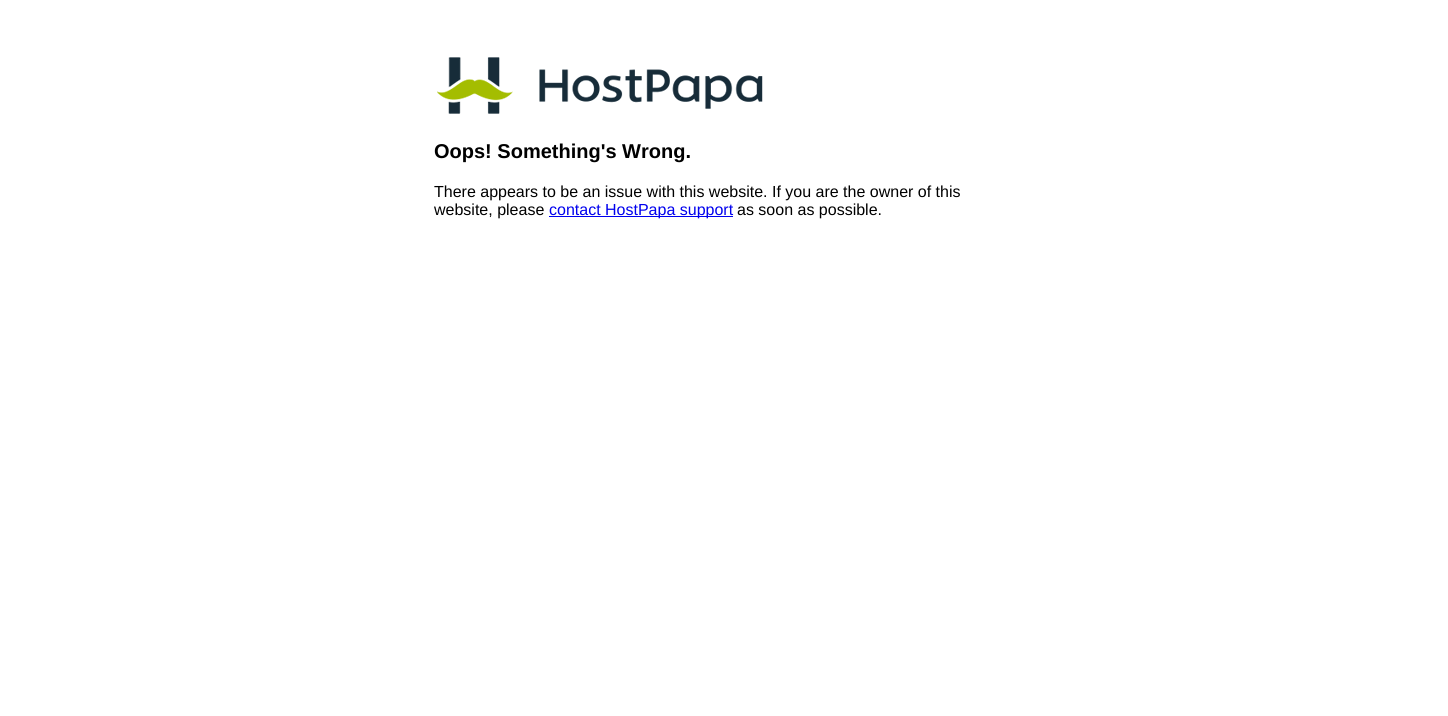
#include <cairo.h>
#include <math.h>
#include <stddef.h>


static void set_color(cairo_t *cr, unsigned color) {
    cairo_set_source_rgb(cr, (color >> 16) / 255.0, (color >> 8 & 255) / 255.0, (color & 255) / 255.0);
}

static void draw_text(cairo_t *cr, double x, double y, const char *s, const char *family, double size, int italic, int bold, unsigned color) {
    cairo_select_font_face(cr, family, italic ? CAIRO_FONT_SLANT_ITALIC : CAIRO_FONT_SLANT_NORMAL,
        bold ? CAIRO_FONT_WEIGHT_BOLD : CAIRO_FONT_WEIGHT_NORMAL);
    cairo_set_font_size(cr, size);
    set_color(cr, color);
    cairo_move_to(cr, x, y);
    cairo_show_text(cr, s);
}

static void fill_rect(cairo_t *cr, double x, double y, double w, double h, unsigned color) {
    set_color(cr, color);
    cairo_rectangle(cr, x, y, w, h);
    cairo_fill(cr);
}

static void draw_image(cairo_t *cr, const char *path, double x, double y, double w, double h) {
    cairo_surface_t *image = cairo_image_surface_create_from_png(path);
    cairo_save(cr);
    cairo_set_source_surface(cr, image, x, y);
    cairo_rectangle(cr, x, y, w, h);
    cairo_fill(cr);
    cairo_restore(cr);
    cairo_surface_destroy(image);
}

int main(void) {
    cairo_surface_t *surface = cairo_image_surface_create(CAIRO_FORMAT_RGB24, 1448, 716);
    cairo_t *cr = cairo_create(surface);
    cairo_font_options_t *options = cairo_font_options_create();
    cairo_font_options_set_hint_metrics(options, CAIRO_HINT_METRICS_OFF);
    cairo_font_options_set_hint_style(options, CAIRO_HINT_STYLE_NONE);
    cairo_set_font_options(cr, options);
    cairo_set_miter_limit(cr, 4);
    set_color(cr, 0xFFFFFF);
    cairo_paint(cr);
    draw_image(cr, "assets/img1.png", 437, 57, 326, 57);
    draw_text(cr, 434, 158, "Oops! Something's Wrong.", "Liberation Sans", 20, 0, 1, 0x000000);
    draw_text(cr, 434, 197, "There appears to be an issue with this website. If you are the owner of this", "Liberation Sans", 16, 0, 0, 0x000000);
    draw_text(cr, 434, 215, "website, please", "Liberation Sans", 16, 0, 0, 0x000000);
    fill_rect(cr, 549, 216, 184, 1, 0x0000EE);
    draw_text(cr, 549, 215, "contact HostPapa support", "Liberation Sans", 16, 0, 0, 0x0000EE);
    draw_text(cr, 737, 215, "as soon as possible.", "Liberation Sans", 16, 0, 0, 0x000000);
    cairo_surface_write_to_png(surface, "output.png");
    cairo_font_options_destroy(options);
    cairo_destroy(cr);
    cairo_surface_destroy(surface);
    return 0;
}
